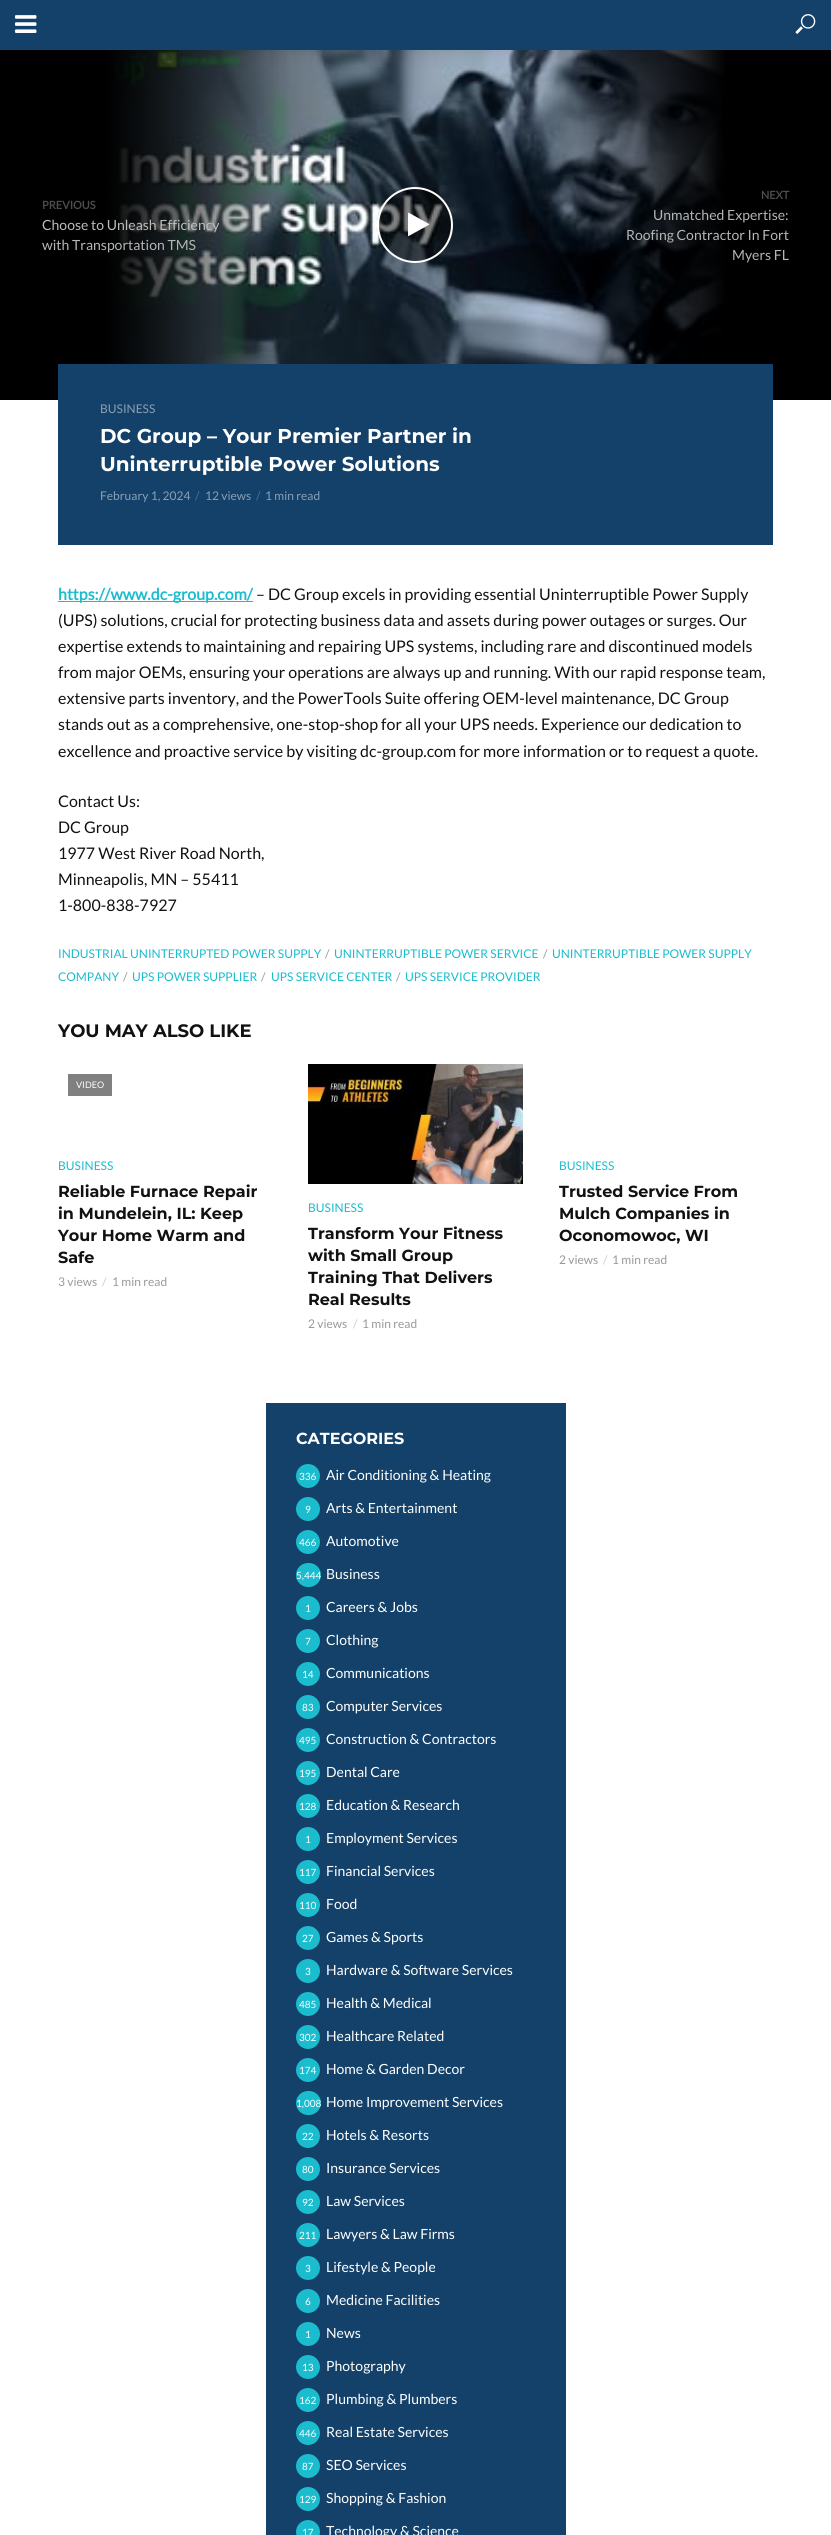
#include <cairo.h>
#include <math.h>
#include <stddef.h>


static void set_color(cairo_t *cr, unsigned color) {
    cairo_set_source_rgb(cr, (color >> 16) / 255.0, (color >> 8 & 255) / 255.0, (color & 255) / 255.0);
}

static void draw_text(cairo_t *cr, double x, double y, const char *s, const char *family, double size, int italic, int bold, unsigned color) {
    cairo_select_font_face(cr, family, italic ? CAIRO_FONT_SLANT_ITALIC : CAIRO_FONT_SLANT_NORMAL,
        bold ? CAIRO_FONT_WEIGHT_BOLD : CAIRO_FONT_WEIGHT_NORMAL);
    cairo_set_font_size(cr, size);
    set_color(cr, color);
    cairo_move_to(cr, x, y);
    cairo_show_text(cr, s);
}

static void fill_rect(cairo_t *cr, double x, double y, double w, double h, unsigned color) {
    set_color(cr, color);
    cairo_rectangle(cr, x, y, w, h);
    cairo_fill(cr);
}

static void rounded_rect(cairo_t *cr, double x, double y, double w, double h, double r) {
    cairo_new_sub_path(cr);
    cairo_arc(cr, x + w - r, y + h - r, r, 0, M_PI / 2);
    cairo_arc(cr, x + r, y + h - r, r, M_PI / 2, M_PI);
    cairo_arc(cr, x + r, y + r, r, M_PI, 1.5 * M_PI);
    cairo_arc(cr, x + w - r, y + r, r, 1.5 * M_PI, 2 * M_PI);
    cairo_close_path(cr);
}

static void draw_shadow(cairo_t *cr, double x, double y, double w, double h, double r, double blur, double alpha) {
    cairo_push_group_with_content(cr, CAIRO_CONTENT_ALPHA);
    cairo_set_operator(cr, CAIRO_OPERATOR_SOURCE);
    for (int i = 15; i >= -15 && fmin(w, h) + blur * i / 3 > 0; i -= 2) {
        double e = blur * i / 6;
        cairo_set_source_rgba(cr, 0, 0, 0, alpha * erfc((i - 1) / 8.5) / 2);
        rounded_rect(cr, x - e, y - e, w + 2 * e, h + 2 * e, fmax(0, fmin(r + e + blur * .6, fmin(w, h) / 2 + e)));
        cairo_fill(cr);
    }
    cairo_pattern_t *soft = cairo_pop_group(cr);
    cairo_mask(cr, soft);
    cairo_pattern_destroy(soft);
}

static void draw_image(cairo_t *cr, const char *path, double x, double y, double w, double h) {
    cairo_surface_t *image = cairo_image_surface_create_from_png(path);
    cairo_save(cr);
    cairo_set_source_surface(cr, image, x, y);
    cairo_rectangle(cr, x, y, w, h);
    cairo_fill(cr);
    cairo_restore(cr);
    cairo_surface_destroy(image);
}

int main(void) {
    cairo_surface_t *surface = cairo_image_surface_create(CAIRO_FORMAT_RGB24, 831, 2535);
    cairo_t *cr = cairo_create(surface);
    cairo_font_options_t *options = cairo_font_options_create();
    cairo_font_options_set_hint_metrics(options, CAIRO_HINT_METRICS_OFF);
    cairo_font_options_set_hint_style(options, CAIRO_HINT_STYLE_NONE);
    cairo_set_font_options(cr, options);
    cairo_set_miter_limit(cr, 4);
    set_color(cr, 0xFFFFFF);
    cairo_paint(cr);
    fill_rect(cr, 0, 50, 831, 350, 0x000000);
    draw_image(cr, "assets/img3.png", 105, 50, 621, 314);
    set_color(cr, 0x000000);
    draw_shadow(cr, 0, 0, 831, 50, 0, 10, 0.15);
    fill_rect(cr, 0, 0, 831, 50, 0x134169);
    draw_image(cr, "assets/img1.png", 15, 15, 22, 18);
    draw_image(cr, "assets/img2.png", 795, 14, 21, 20);
    cairo_set_source_rgba(cr, 0, 0, 0, 0.5);
    cairo_arc(cr, 415, 225, 37, 0, 2 * M_PI);
    cairo_fill_preserve(cr);
    set_color(cr, 0xFFFFFF);
    cairo_stroke(cr);
    draw_image(cr, "assets/img4.png", 408, 212, 22, 24);
    draw_text(cr, 42, 209, "PREVIOUS", "Lato", 11, 0, 1, 0x4D4D4D);
    draw_text(cr, 42, 230, "Choose to Unleash Efficiency", "Lato", 14, 0, 0, 0xBCBDBD);
    draw_text(cr, 42, 250, "with Transportation TMS", "Lato", 14, 0, 0, 0xB5B6B6);
    draw_text(cr, 761, 199, "NEXT", "Lato", 11, 0, 1, 0x4D4D4D);
    draw_text(cr, 653, 220, "Unmatched Expertise:", "Lato", 14, 0, 0, 0xB5B6B6);
    draw_text(cr, 626, 240, "Roofing Contractor In Fort", "Lato", 14, 0, 0, 0xB5B6B6);
    draw_text(cr, 732, 260, "Myers FL", "Lato", 14, 0, 0, 0xB5B6B6);
    fill_rect(cr, 58, 364, 715, 181, 0x134169);
    draw_text(cr, 100, 413, "BUSINESS", "Lato", 12, 0, 0, 0x89A0B4);
    draw_text(cr, 100, 443, "DC Group – Your Premier Partner in", "Montserrat", 20, 0, 1, 0xFFFFFF);
    draw_text(cr, 100, 471, "Uninterruptible Power Solutions", "Montserrat", 20, 0, 1, 0xFFFFFF);
    draw_text(cr, 100, 500, "February 1, 2024", "Lato", 12, 0, 0, 0x89A0B4);
    draw_text(cr, 195, 500, "/", "Lato", 12, 0, 0, 0x4E718F);
    draw_text(cr, 205, 500, "12 views", "Lato", 12, 0, 0, 0x89A0B4);
    draw_text(cr, 256, 500, "/", "Lato", 12, 0, 0, 0x4E718F);
    draw_text(cr, 265, 500, "1 min read", "Lato", 12, 0, 0, 0x89A0B4);
    fill_rect(cr, 58, 601, 195, 1, 0x1ABCCE);
    draw_text(cr, 58, 600, "https://www.dc-group.com/", "Lato", 16, 0, 1, 0x1ABCCE);
    draw_text(cr, 256, 600, "– DC Group excels in providing essential Uninterruptible Power Supply", "Lato", 16, 0, 0, 0x111111);
    draw_text(cr, 58, 626, "(UPS) solutions, crucial for protecting business data and assets during power outages or surges. Our", "Lato", 16, 0, 0, 0x111111);
    draw_text(cr, 58, 652, "expertise extends to maintaining and repairing UPS systems, including rare and discontinued models", "Lato", 16, 0, 0, 0x111111);
    draw_text(cr, 58, 678, "from major OEMs, ensuring your operations are always up and running. With our rapid response team,", "Lato", 16, 0, 0, 0x111111);
    draw_text(cr, 58, 704, "extensive parts inventory, and the PowerTools Suite offering OEM-level maintenance, DC Group", "Lato", 16, 0, 0, 0x111111);
    draw_text(cr, 58, 730, "stands out as a comprehensive, one-stop-shop for all your UPS needs. Experience our dedication to", "Lato", 16, 0, 0, 0x111111);
    draw_text(cr, 58, 757, "excellence and proactive service by visiting dc-group.com for more information or to request a quote.", "Lato", 16, 0, 0, 0x111111);
    draw_text(cr, 58, 807, "Contact Us:", "Lato", 16, 0, 0, 0x111111);
    draw_text(cr, 58, 833, "DC Group", "Lato", 16, 0, 0, 0x111111);
    draw_text(cr, 58, 859, "1977 West River Road North,", "Lato", 16, 0, 0, 0x111111);
    draw_text(cr, 58, 885, "Minneapolis, MN – 55411", "Lato", 16, 0, 0, 0x111111);
    draw_text(cr, 58, 911, "1-800-838-7927", "Lato", 16, 0, 0, 0x111111);
    draw_text(cr, 58, 958, "INDUSTRIAL UNINTERRUPTED POWER SUPPLY", "Lato", 12, 0, 0, 0x1ABCCE);
    draw_text(cr, 325, 958, "/", "Lato", 12, 0, 0, 0x999999);
    draw_text(cr, 334, 958, "UNINTERRUPTIBLE POWER SERVICE", "Lato", 12, 0, 0, 0x1ABCCE);
    draw_text(cr, 543, 958, "/", "Lato", 12, 0, 0, 0x999999);
    draw_text(cr, 552, 958, "UNINTERRUPTIBLE POWER SUPPLY", "Lato", 12, 0, 0, 0x1ABCCE);
    draw_text(cr, 58, 981, "COMPANY", "Lato", 12, 0, 0, 0x1ABCCE);
    draw_text(cr, 123, 981, "/", "Lato", 12, 0, 0, 0x999999);
    draw_text(cr, 132, 981, "UPS POWER SUPPLIER", "Lato", 12, 0, 0, 0x1ABCCE);
    draw_text(cr, 261, 981, "/", "Lato", 12, 0, 0, 0x999999);
    draw_text(cr, 271, 981, "UPS SERVICE CENTER", "Lato", 12, 0, 0, 0x1ABCCE);
    draw_text(cr, 396, 981, "/", "Lato", 12, 0, 0, 0x999999);
    draw_text(cr, 405, 981, "UPS SERVICE PROVIDER", "Lato", 12, 0, 0, 0x1ABCCE);
    draw_text(cr, 58, 1037, "YOU MAY ALSO LIKE", "Montserrat", 18, 0, 1, 0x111111);
    fill_rect(cr, 68, 1074, 44, 22, 0x808080);
    draw_text(cr, 76, 1088, "VIDEO", "Lato", 9, 0, 0, 0xFFFFFF);
    draw_text(cr, 58, 1170, "BUSINESS", "Lato", 12, 0, 0, 0x1ABCCE);
    draw_text(cr, 58, 1197, "Reliable Furnace Repair", "Montserrat", 16, 0, 1, 0x111111);
    draw_text(cr, 58, 1219, "in Mundelein, IL: Keep", "Montserrat", 16, 0, 1, 0x111111);
    draw_text(cr, 58, 1241, "Your Home Warm and", "Montserrat", 16, 0, 1, 0x111111);
    draw_text(cr, 58, 1263, "Safe", "Montserrat", 16, 0, 1, 0x111111);
    draw_text(cr, 58, 1286, "3 views", "Lato", 12, 0, 0, 0x999999);
    draw_text(cr, 102, 1286, "/", "Lato", 12, 0, 0, 0xCCCCCC);
    draw_text(cr, 112, 1286, "1 min read", "Lato", 12, 0, 0, 0x999999);
    draw_image(cr, "assets/img5.png", 308, 1064, 215, 120);
    draw_text(cr, 308, 1212, "BUSINESS", "Lato", 12, 0, 0, 0x1ABCCE);
    draw_text(cr, 308, 1239, "Transform Your Fitness", "Montserrat", 16, 0, 1, 0x111111);
    draw_text(cr, 308, 1261, "with Small Group", "Montserrat", 16, 0, 1, 0x111111);
    draw_text(cr, 308, 1283, "Training That Delivers", "Montserrat", 16, 0, 1, 0x111111);
    draw_text(cr, 308, 1305, "Real Results", "Montserrat", 16, 0, 1, 0x111111);
    draw_text(cr, 308, 1328, "2 views", "Lato", 12, 0, 0, 0x999999);
    draw_text(cr, 353, 1328, "/", "Lato", 12, 0, 0, 0xCCCCCC);
    draw_text(cr, 362, 1328, "1 min read", "Lato", 12, 0, 0, 0x999999);
    draw_text(cr, 559, 1170, "BUSINESS", "Lato", 12, 0, 0, 0x1ABCCE);
    draw_text(cr, 559, 1197, "Trusted Service From", "Montserrat", 16, 0, 1, 0x111111);
    draw_text(cr, 559, 1219, "Mulch Companies in", "Montserrat", 16, 0, 1, 0x111111);
    draw_text(cr, 559, 1241, "Oconomowoc, WI", "Montserrat", 16, 0, 1, 0x111111);
    draw_text(cr, 559, 1264, "2 views", "Lato", 12, 0, 0, 0x999999);
    draw_text(cr, 603, 1264, "/", "Lato", 12, 0, 0, 0xCCCCCC);
    draw_text(cr, 612, 1264, "1 min read", "Lato", 12, 0, 0, 0x999999);
    fill_rect(cr, 266, 1403, 300, 1132, 0x134169);
    draw_text(cr, 296, 1444, "CATEGORIES", "Montserrat", 16, 0, 1, 0xFFFFFF);
    set_color(cr, 0x1ABCCE);
    cairo_new_path(cr);
    cairo_arc(cr, 308, 1476, 12, 0, 2 * M_PI);
    cairo_fill(cr);
    draw_text(cr, 299, 1480, "336", "Lato", 10, 0, 0, 0xFFFFFF);
    draw_text(cr, 326, 1480, "Air Conditioning & Heating", "Lato", 14, 0, 0, 0xFFFFFF);
    set_color(cr, 0x1ABCCE);
    cairo_new_path(cr);
    cairo_arc(cr, 308, 1509, 12, 0, 2 * M_PI);
    cairo_fill(cr);
    draw_text(cr, 305, 1513, "9", "Lato", 10, 0, 0, 0xFFFFFF);
    draw_text(cr, 326, 1513, "Arts & Entertainment", "Lato", 14, 0, 0, 0xFFFFFF);
    set_color(cr, 0x1ABCCE);
    cairo_new_path(cr);
    cairo_arc(cr, 308, 1542, 12, 0, 2 * M_PI);
    cairo_fill(cr);
    draw_text(cr, 299, 1546, "466", "Lato", 10, 0, 0, 0xFFFFFF);
    draw_text(cr, 326, 1546, "Automotive", "Lato", 14, 0, 0, 0xFFFFFF);
    set_color(cr, 0x1ABCCE);
    rounded_rect(cr, 296, 1563, 25, 24, 12);
    cairo_fill(cr);
    draw_text(cr, 296, 1579, "5,444", "Lato", 10, 0, 0, 0xFFFFFF);
    draw_text(cr, 326, 1579, "Business", "Lato", 14, 0, 0, 0xFFFFFF);
    set_color(cr, 0x1ABCCE);
    cairo_new_path(cr);
    cairo_arc(cr, 308, 1608, 12, 0, 2 * M_PI);
    cairo_fill(cr);
    draw_text(cr, 305, 1612, "1", "Lato", 10, 0, 0, 0xFFFFFF);
    draw_text(cr, 326, 1612, "Careers & Jobs", "Lato", 14, 0, 0, 0xFFFFFF);
    set_color(cr, 0x1ABCCE);
    cairo_new_path(cr);
    cairo_arc(cr, 308, 1641, 12, 0, 2 * M_PI);
    cairo_fill(cr);
    draw_text(cr, 305, 1645, "7", "Lato", 10, 0, 0, 0xFFFFFF);
    draw_text(cr, 326, 1645, "Clothing", "Lato", 14, 0, 0, 0xFFFFFF);
    set_color(cr, 0x1ABCCE);
    cairo_new_path(cr);
    cairo_arc(cr, 308, 1674, 12, 0, 2 * M_PI);
    cairo_fill(cr);
    draw_text(cr, 302, 1678, "14", "Lato", 10, 0, 0, 0xFFFFFF);
    draw_text(cr, 326, 1678, "Communications", "Lato", 14, 0, 0, 0xFFFFFF);
    set_color(cr, 0x1ABCCE);
    cairo_new_path(cr);
    cairo_arc(cr, 308, 1707, 12, 0, 2 * M_PI);
    cairo_fill(cr);
    draw_text(cr, 302, 1711, "83", "Lato", 10, 0, 0, 0xFFFFFF);
    draw_text(cr, 326, 1711, "Computer Services", "Lato", 14, 0, 0, 0xFFFFFF);
    set_color(cr, 0x1ABCCE);
    cairo_new_path(cr);
    cairo_arc(cr, 308, 1740, 12, 0, 2 * M_PI);
    cairo_fill(cr);
    draw_text(cr, 299, 1744, "495", "Lato", 10, 0, 0, 0xFFFFFF);
    draw_text(cr, 326, 1744, "Construction & Contractors", "Lato", 14, 0, 0, 0xFFFFFF);
    set_color(cr, 0x1ABCCE);
    cairo_new_path(cr);
    cairo_arc(cr, 308, 1773, 12, 0, 2 * M_PI);
    cairo_fill(cr);
    draw_text(cr, 299, 1777, "195", "Lato", 10, 0, 0, 0xFFFFFF);
    draw_text(cr, 326, 1777, "Dental Care", "Lato", 14, 0, 0, 0xFFFFFF);
    set_color(cr, 0x1ABCCE);
    cairo_new_path(cr);
    cairo_arc(cr, 308, 1806, 12, 0, 2 * M_PI);
    cairo_fill(cr);
    draw_text(cr, 299, 1810, "128", "Lato", 10, 0, 0, 0xFFFFFF);
    draw_text(cr, 326, 1810, "Education & Research", "Lato", 14, 0, 0, 0xFFFFFF);
    set_color(cr, 0x1ABCCE);
    cairo_new_path(cr);
    cairo_arc(cr, 308, 1839, 12, 0, 2 * M_PI);
    cairo_fill(cr);
    draw_text(cr, 305, 1843, "1", "Lato", 10, 0, 0, 0xFFFFFF);
    draw_text(cr, 326, 1843, "Employment Services", "Lato", 14, 0, 0, 0xFFFFFF);
    set_color(cr, 0x1ABCCE);
    cairo_new_path(cr);
    cairo_arc(cr, 308, 1872, 12, 0, 2 * M_PI);
    cairo_fill(cr);
    draw_text(cr, 299, 1876, "117", "Lato", 10, 0, 0, 0xFFFFFF);
    draw_text(cr, 326, 1876, "Financial Services", "Lato", 14, 0, 0, 0xFFFFFF);
    set_color(cr, 0x1ABCCE);
    cairo_new_path(cr);
    cairo_arc(cr, 308, 1905, 12, 0, 2 * M_PI);
    cairo_fill(cr);
    draw_text(cr, 299, 1909, "110", "Lato", 10, 0, 0, 0xFFFFFF);
    draw_text(cr, 326, 1909, "Food", "Lato", 14, 0, 0, 0xFFFFFF);
    set_color(cr, 0x1ABCCE);
    cairo_new_path(cr);
    cairo_arc(cr, 308, 1938, 12, 0, 2 * M_PI);
    cairo_fill(cr);
    draw_text(cr, 302, 1942, "27", "Lato", 10, 0, 0, 0xFFFFFF);
    draw_text(cr, 326, 1942, "Games & Sports", "Lato", 14, 0, 0, 0xFFFFFF);
    set_color(cr, 0x1ABCCE);
    cairo_new_path(cr);
    cairo_arc(cr, 308, 1971, 12, 0, 2 * M_PI);
    cairo_fill(cr);
    draw_text(cr, 305, 1975, "3", "Lato", 10, 0, 0, 0xFFFFFF);
    draw_text(cr, 326, 1975, "Hardware & Software Services", "Lato", 14, 0, 0, 0xFFFFFF);
    set_color(cr, 0x1ABCCE);
    cairo_new_path(cr);
    cairo_arc(cr, 308, 2004, 12, 0, 2 * M_PI);
    cairo_fill(cr);
    draw_text(cr, 299, 2008, "485", "Lato", 10, 0, 0, 0xFFFFFF);
    draw_text(cr, 326, 2008, "Health & Medical", "Lato", 14, 0, 0, 0xFFFFFF);
    set_color(cr, 0x1ABCCE);
    cairo_new_path(cr);
    cairo_arc(cr, 308, 2037, 12, 0, 2 * M_PI);
    cairo_fill(cr);
    draw_text(cr, 299, 2041, "302", "Lato", 10, 0, 0, 0xFFFFFF);
    draw_text(cr, 326, 2041, "Healthcare Related", "Lato", 14, 0, 0, 0xFFFFFF);
    set_color(cr, 0x1ABCCE);
    cairo_new_path(cr);
    cairo_arc(cr, 308, 2070, 12, 0, 2 * M_PI);
    cairo_fill(cr);
    draw_text(cr, 299, 2074, "174", "Lato", 10, 0, 0, 0xFFFFFF);
    draw_text(cr, 326, 2074, "Home & Garden Decor", "Lato", 14, 0, 0, 0xFFFFFF);
    set_color(cr, 0x1ABCCE);
    rounded_rect(cr, 296, 2091, 25, 24, 12);
    cairo_fill(cr);
    draw_text(cr, 296, 2107, "1,008", "Lato", 10, 0, 0, 0xFFFFFF);
    draw_text(cr, 326, 2107, "Home Improvement Services", "Lato", 14, 0, 0, 0xFFFFFF);
    set_color(cr, 0x1ABCCE);
    cairo_new_path(cr);
    cairo_arc(cr, 308, 2136, 12, 0, 2 * M_PI);
    cairo_fill(cr);
    draw_text(cr, 302, 2140, "22", "Lato", 10, 0, 0, 0xFFFFFF);
    draw_text(cr, 326, 2140, "Hotels & Resorts", "Lato", 14, 0, 0, 0xFFFFFF);
    set_color(cr, 0x1ABCCE);
    cairo_new_path(cr);
    cairo_arc(cr, 308, 2169, 12, 0, 2 * M_PI);
    cairo_fill(cr);
    draw_text(cr, 302, 2173, "80", "Lato", 10, 0, 0, 0xFFFFFF);
    draw_text(cr, 326, 2173, "Insurance Services", "Lato", 14, 0, 0, 0xFFFFFF);
    set_color(cr, 0x1ABCCE);
    cairo_new_path(cr);
    cairo_arc(cr, 308, 2202, 12, 0, 2 * M_PI);
    cairo_fill(cr);
    draw_text(cr, 302, 2206, "92", "Lato", 10, 0, 0, 0xFFFFFF);
    draw_text(cr, 326, 2206, "Law Services", "Lato", 14, 0, 0, 0xFFFFFF);
    set_color(cr, 0x1ABCCE);
    cairo_new_path(cr);
    cairo_arc(cr, 308, 2235, 12, 0, 2 * M_PI);
    cairo_fill(cr);
    draw_text(cr, 299, 2239, "211", "Lato", 10, 0, 0, 0xFFFFFF);
    draw_text(cr, 326, 2239, "Lawyers & Law Firms", "Lato", 14, 0, 0, 0xFFFFFF);
    set_color(cr, 0x1ABCCE);
    cairo_new_path(cr);
    cairo_arc(cr, 308, 2268, 12, 0, 2 * M_PI);
    cairo_fill(cr);
    draw_text(cr, 305, 2272, "3", "Lato", 10, 0, 0, 0xFFFFFF);
    draw_text(cr, 326, 2272, "Lifestyle & People", "Lato", 14, 0, 0, 0xFFFFFF);
    set_color(cr, 0x1ABCCE);
    cairo_new_path(cr);
    cairo_arc(cr, 308, 2301, 12, 0, 2 * M_PI);
    cairo_fill(cr);
    draw_text(cr, 305, 2305, "6", "Lato", 10, 0, 0, 0xFFFFFF);
    draw_text(cr, 326, 2305, "Medicine Facilities", "Lato", 14, 0, 0, 0xFFFFFF);
    set_color(cr, 0x1ABCCE);
    cairo_new_path(cr);
    cairo_arc(cr, 308, 2334, 12, 0, 2 * M_PI);
    cairo_fill(cr);
    draw_text(cr, 305, 2338, "1", "Lato", 10, 0, 0, 0xFFFFFF);
    draw_text(cr, 326, 2338, "News", "Lato", 14, 0, 0, 0xFFFFFF);
    set_color(cr, 0x1ABCCE);
    cairo_new_path(cr);
    cairo_arc(cr, 308, 2367, 12, 0, 2 * M_PI);
    cairo_fill(cr);
    draw_text(cr, 302, 2371, "13", "Lato", 10, 0, 0, 0xFFFFFF);
    draw_text(cr, 326, 2371, "Photography", "Lato", 14, 0, 0, 0xFFFFFF);
    set_color(cr, 0x1ABCCE);
    cairo_new_path(cr);
    cairo_arc(cr, 308, 2400, 12, 0, 2 * M_PI);
    cairo_fill(cr);
    draw_text(cr, 299, 2404, "162", "Lato", 10, 0, 0, 0xFFFFFF);
    draw_text(cr, 326, 2404, "Plumbing & Plumbers", "Lato", 14, 0, 0, 0xFFFFFF);
    set_color(cr, 0x1ABCCE);
    cairo_new_path(cr);
    cairo_arc(cr, 308, 2433, 12, 0, 2 * M_PI);
    cairo_fill(cr);
    draw_text(cr, 299, 2437, "446", "Lato", 10, 0, 0, 0xFFFFFF);
    draw_text(cr, 326, 2437, "Real Estate Services", "Lato", 14, 0, 0, 0xFFFFFF);
    set_color(cr, 0x1ABCCE);
    cairo_new_path(cr);
    cairo_arc(cr, 308, 2466, 12, 0, 2 * M_PI);
    cairo_fill(cr);
    draw_text(cr, 302, 2470, "87", "Lato", 10, 0, 0, 0xFFFFFF);
    draw_text(cr, 326, 2470, "SEO Services", "Lato", 14, 0, 0, 0xFFFFFF);
    set_color(cr, 0x1ABCCE);
    cairo_new_path(cr);
    cairo_arc(cr, 308, 2499, 12, 0, 2 * M_PI);
    cairo_fill(cr);
    draw_text(cr, 299, 2503, "129", "Lato", 10, 0, 0, 0xFFFFFF);
    draw_text(cr, 326, 2503, "Shopping & Fashion", "Lato", 14, 0, 0, 0xFFFFFF);
    set_color(cr, 0x1ABCCE);
    cairo_new_path(cr);
    cairo_arc(cr, 308, 2532, 12, 0, 2 * M_PI);
    cairo_fill(cr);
    draw_text(cr, 302, 2536, "17", "Lato", 10, 0, 0, 0xFFFFFF);
    draw_text(cr, 326, 2536, "Technology & Science", "Lato", 14, 0, 0, 0xFFFFFF);
    cairo_surface_write_to_png(surface, "output.png");
    cairo_font_options_destroy(options);
    cairo_destroy(cr);
    cairo_surface_destroy(surface);
    return 0;
}
